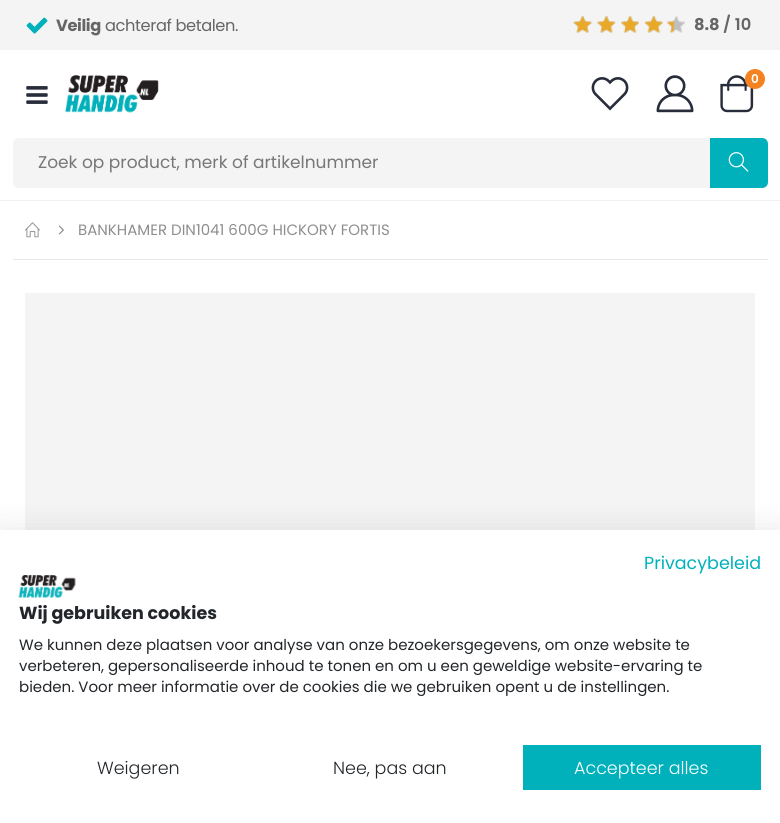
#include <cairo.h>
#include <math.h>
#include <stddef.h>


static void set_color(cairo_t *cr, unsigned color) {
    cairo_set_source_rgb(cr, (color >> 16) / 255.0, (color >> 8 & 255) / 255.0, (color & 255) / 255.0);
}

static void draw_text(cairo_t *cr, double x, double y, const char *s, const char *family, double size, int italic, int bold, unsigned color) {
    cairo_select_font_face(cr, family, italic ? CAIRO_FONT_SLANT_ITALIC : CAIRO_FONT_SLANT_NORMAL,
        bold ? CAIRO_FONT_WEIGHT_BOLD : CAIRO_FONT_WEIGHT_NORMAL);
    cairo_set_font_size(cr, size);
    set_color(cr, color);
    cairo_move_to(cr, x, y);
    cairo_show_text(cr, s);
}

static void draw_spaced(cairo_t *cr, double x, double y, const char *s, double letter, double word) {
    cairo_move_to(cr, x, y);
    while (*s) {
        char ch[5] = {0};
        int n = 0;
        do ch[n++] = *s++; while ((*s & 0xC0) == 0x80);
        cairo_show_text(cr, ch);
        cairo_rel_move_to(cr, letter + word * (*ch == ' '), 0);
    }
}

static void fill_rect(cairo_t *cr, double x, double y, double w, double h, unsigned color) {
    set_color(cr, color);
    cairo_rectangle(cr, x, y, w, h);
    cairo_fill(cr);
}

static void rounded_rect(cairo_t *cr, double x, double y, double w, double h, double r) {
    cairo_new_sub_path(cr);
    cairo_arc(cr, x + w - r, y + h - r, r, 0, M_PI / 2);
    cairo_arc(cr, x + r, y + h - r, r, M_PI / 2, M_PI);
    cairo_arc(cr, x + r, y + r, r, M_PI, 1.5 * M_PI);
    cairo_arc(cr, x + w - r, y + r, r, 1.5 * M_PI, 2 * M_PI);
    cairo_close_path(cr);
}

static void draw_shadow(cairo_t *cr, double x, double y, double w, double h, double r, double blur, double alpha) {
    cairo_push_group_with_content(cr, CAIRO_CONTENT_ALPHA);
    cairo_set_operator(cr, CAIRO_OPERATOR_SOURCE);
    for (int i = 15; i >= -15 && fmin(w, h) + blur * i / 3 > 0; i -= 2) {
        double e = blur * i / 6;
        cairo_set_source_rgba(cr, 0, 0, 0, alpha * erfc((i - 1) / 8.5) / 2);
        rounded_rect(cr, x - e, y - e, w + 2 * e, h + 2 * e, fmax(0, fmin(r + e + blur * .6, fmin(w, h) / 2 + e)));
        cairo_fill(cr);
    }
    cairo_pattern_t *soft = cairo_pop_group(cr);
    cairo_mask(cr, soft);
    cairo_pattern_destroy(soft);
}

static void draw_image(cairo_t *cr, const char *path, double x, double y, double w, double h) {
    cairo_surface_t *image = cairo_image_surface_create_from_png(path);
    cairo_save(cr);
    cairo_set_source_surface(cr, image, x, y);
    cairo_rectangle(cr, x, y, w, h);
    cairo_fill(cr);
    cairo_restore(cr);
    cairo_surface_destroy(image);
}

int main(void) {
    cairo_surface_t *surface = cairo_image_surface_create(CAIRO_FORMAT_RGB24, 780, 823);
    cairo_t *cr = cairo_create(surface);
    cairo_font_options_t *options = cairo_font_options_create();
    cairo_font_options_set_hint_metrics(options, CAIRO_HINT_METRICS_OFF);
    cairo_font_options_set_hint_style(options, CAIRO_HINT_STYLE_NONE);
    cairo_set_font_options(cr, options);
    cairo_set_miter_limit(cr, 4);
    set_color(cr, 0xFFFFFF);
    cairo_paint(cr);
    fill_rect(cr, 0, 0, 780, 50, 0xF4F4F4);
    draw_image(cr, "assets/img1.png", 26, 17, 22, 17);
    cairo_select_font_face(cr, "Poppins", CAIRO_FONT_SLANT_NORMAL, CAIRO_FONT_WEIGHT_BOLD);
    cairo_set_font_size(cr, 16.25);
    set_color(cr, 0x666666);
    draw_spaced(cr, 56, 31, "Veilig", -0.4, 0);
    cairo_select_font_face(cr, "Poppins", CAIRO_FONT_SLANT_NORMAL, CAIRO_FONT_WEIGHT_NORMAL);
    draw_spaced(cr, 105, 31, "achteraf betalen.", -0.4, 0);
    draw_image(cr, "assets/img2.png", 573, 16, 112, 17);
    draw_image(cr, "assets/img3.png", 573, 16, 101, 17);
    draw_text(cr, 694, 30, "8.8", "Poppins", 16.25, 0, 1, 0x666666);
    draw_text(cr, 723, 30, "/ 10", "Poppins SemiBold", 16.25, 0, 0, 0x666666);
    draw_image(cr, "assets/img4.png", 591, 77, 38, 34);
    draw_image(cr, "assets/img5.png", 656, 75, 38, 38);
    draw_image(cr, "assets/img6.png", 720, 75, 34, 38);
    set_color(cr, 0xF58220);
    cairo_arc(cr, 755, 79, 10, 0, 2 * M_PI);
    cairo_fill(cr);
    draw_text(cr, 751, 83, "0", "Poppins SemiBold", 12, 0, 0, 0xFFFFFF);
    draw_image(cr, "assets/img7.png", 26, 86, 22, 18);
    draw_image(cr, "assets/img8.png", 65, 75, 94, 38);
    fill_rect(cr, 0, 200, 780, 1, 0xF0F0F0);
    set_color(cr, 0xF4F4F4);
    cairo_new_path(cr);
    cairo_move_to(cr, 19, 138);
    cairo_line_to(cr, 710, 138);
    cairo_line_to(cr, 710, 188);
    cairo_line_to(cr, 19, 188);
    cairo_curve_to(cr, 15.5, 188, 13, 185.5, 13, 182);
    cairo_line_to(cr, 13, 144);
    cairo_curve_to(cr, 13, 140.5, 15.5, 138, 19, 138);
    cairo_close_path(cr);
    cairo_fill(cr);
    draw_text(cr, 38, 168, "Zoek op product, merk of artikelnummer", "Poppins", 17, 0, 0, 0x777777);
    set_color(cr, 0x00B1BB);
    cairo_new_path(cr);
    cairo_move_to(cr, 710, 138);
    cairo_line_to(cr, 762, 138);
    cairo_curve_to(cr, 765.5, 138, 768, 140.5, 768, 144);
    cairo_line_to(cr, 768, 182);
    cairo_curve_to(cr, 768, 185.5, 765.5, 188, 762, 188);
    cairo_line_to(cr, 710, 188);
    cairo_close_path(cr);
    cairo_fill(cr);
    draw_image(cr, "assets/img9.png", 728, 152, 21, 20);
    draw_image(cr, "assets/img10.png", 25, 222, 15, 16);
    draw_image(cr, "assets/img11.png", 58, 225, 6, 10);
    draw_text(cr, 78, 235, "BANKHAMER DIN1041 600G HICKORY FORTIS", "Poppins", 15, 0, 0, 0x8E8E8E);
    fill_rect(cr, 13, 259, 755, 1, 0xE7E7E7);
    draw_image(cr, "assets/img12.png", 25, 293, 730, 237);
    set_color(cr, 0x000000);
    draw_shadow(cr, 0, 530, 780, 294, 0, 15, 0.1);
    fill_rect(cr, 0, 530, 780, 293, 0xFFFFFF);
    draw_text(cr, 644, 569, "Privacybeleid", "Poppins", 17.5, 0, 0, 0x00B1BB);
    draw_image(cr, "assets/img13.png", 18, 575, 58, 23);
    draw_text(cr, 19, 619, "Wij gebruiken cookies", "Poppins", 17.5, 0, 1, 0x222529);
    draw_text(cr, 19, 650, "We kunnen deze plaatsen voor analyse van onze bezoekersgegevens, om onze website te", "Poppins", 15, 0, 0, 0x222529);
    draw_text(cr, 19, 671, "verbeteren, gepersonaliseerde inhoud te tonen en om u een geweldige website-ervaring te", "Poppins", 15, 0, 0, 0x222529);
    draw_text(cr, 19, 692, "bieden. Voor meer informatie over de cookies die we gebruiken opent u de instellingen.", "Poppins", 15, 0, 0, 0x222529);
    draw_text(cr, 97, 774, "Weigeren", "Poppins Light", 17.5, 0, 0, 0x222529);
    draw_text(cr, 333, 774, "Nee, pas aan", "Poppins Light", 17.5, 0, 0, 0x222529);
    fill_rect(cr, 523, 745, 238, 45, 0x00B1BB);
    draw_text(cr, 574, 774, "Accepteer alles", "Poppins Light", 17.5, 0, 0, 0xFFFFFF);
    cairo_surface_write_to_png(surface, "output.png");
    cairo_font_options_destroy(options);
    cairo_destroy(cr);
    cairo_surface_destroy(surface);
    return 0;
}
